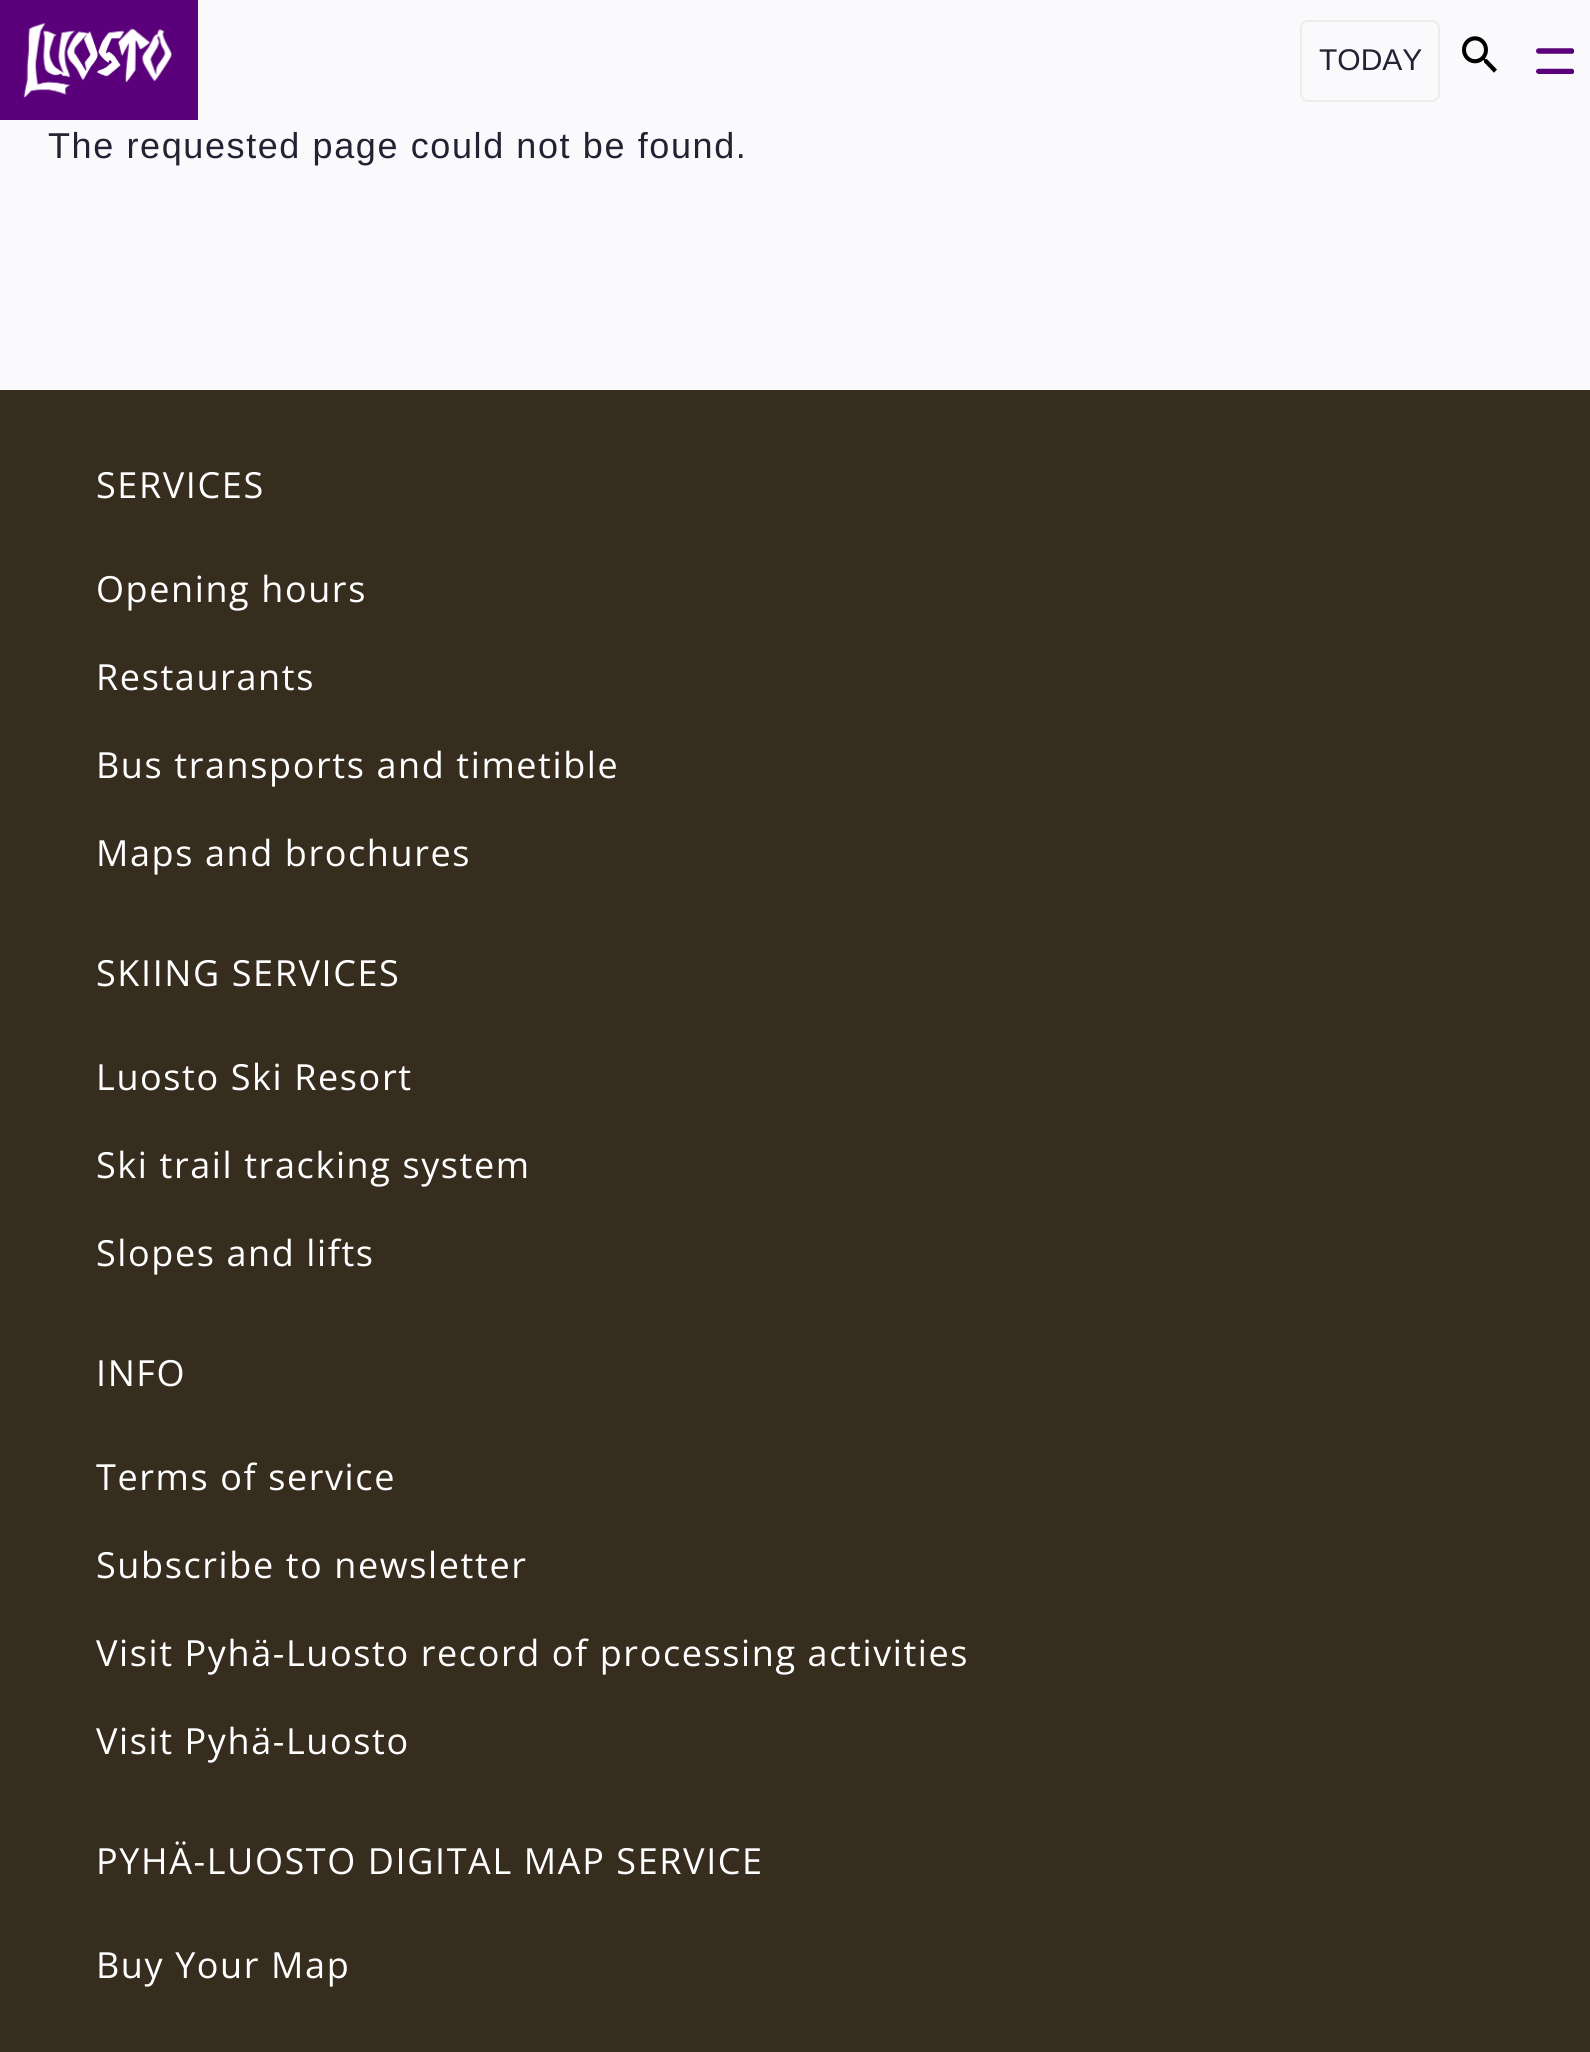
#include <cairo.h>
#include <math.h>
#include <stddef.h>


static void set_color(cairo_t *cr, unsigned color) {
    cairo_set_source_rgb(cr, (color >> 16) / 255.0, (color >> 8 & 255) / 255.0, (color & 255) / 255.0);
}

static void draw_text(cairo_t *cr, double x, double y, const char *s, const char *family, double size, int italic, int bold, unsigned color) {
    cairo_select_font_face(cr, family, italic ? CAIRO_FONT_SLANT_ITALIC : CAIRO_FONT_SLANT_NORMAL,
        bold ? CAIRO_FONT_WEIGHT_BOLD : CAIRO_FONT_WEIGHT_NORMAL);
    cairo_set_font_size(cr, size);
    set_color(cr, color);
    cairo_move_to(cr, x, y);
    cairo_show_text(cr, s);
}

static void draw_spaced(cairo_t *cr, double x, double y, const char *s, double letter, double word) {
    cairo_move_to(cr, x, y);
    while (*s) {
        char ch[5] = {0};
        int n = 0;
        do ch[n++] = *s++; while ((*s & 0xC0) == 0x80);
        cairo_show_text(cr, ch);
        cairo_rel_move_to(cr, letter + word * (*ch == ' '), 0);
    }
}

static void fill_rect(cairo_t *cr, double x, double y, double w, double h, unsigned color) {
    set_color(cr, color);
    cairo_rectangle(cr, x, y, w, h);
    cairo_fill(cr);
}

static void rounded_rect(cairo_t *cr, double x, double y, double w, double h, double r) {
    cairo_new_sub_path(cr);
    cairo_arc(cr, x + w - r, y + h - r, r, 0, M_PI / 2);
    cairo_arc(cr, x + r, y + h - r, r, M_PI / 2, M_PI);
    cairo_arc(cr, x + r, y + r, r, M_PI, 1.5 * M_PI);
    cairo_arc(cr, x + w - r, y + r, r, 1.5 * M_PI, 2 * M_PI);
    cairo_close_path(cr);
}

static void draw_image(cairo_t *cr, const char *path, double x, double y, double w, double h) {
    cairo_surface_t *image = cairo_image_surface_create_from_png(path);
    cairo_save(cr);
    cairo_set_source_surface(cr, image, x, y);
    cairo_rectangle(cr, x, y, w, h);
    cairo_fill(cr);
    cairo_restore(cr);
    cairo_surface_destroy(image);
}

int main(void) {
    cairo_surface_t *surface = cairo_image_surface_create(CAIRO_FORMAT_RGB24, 1590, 2052);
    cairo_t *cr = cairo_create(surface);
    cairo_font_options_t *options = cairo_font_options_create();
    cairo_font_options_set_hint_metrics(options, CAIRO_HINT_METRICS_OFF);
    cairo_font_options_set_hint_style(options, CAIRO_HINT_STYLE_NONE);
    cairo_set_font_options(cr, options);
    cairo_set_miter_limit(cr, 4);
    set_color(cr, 0xFAFAFD);
    cairo_paint(cr);
    fill_rect(cr, 0, 0, 198, 120, 0x5A007B);
    draw_image(cr, "assets/img1.png", 23, 22, 149, 76);
    rounded_rect(cr, 1301, 21, 138, 80, 7);
    set_color(cr, 0xECECEA);
    cairo_stroke(cr);
    draw_text(cr, 1319, 70, "TODAY", "Liberation Sans", 30, 0, 0, 0x222233);
    draw_image(cr, "assets/img2.png", 1462, 36, 35, 37);
    draw_image(cr, "assets/img3.png", 1536, 48, 38, 26);
    cairo_set_font_size(cr, 36);
    draw_spaced(cr, 48, 158, "The requested page could not be found.", 1.6, 0);
    fill_rect(cr, 0, 390, 1590, 1662, 0x362D1F);
    cairo_select_font_face(cr, "Open Sans", CAIRO_FONT_SLANT_NORMAL, CAIRO_FONT_WEIGHT_NORMAL);
    set_color(cr, 0xFFFFFF);
    draw_spaced(cr, 96, 498, "SERVICES", 1.6, 0);
    draw_spaced(cr, 96, 602, "Opening hours", 1.6, 0);
    draw_spaced(cr, 96, 690, "Restaurants", 1.6, 0);
    draw_spaced(cr, 96, 778, "Bus transports and timetible", 1.6, 0);
    draw_spaced(cr, 96, 866, "Maps and brochures", 1.6, 0);
    draw_spaced(cr, 96, 986, "SKIING SERVICES", 1.6, 0);
    draw_spaced(cr, 96, 1090, "Luosto Ski Resort", 1.6, 0);
    draw_spaced(cr, 96, 1178, "Ski trail tracking system", 1.6, 0);
    draw_spaced(cr, 96, 1266, "Slopes and lifts", 1.6, 0);
    draw_spaced(cr, 96, 1386, "INFO", 1.6, 0);
    draw_spaced(cr, 96, 1490, "Terms of service", 1.6, 0);
    draw_spaced(cr, 96, 1578, "Subscribe to newsletter", 1.6, 0);
    draw_spaced(cr, 96, 1666, "Visit Pyhä-Luosto record of processing activities", 1.6, 0);
    draw_spaced(cr, 96, 1754, "Visit Pyhä-Luosto", 1.6, 0);
    draw_spaced(cr, 96, 1874, "PYHÄ-LUOSTO DIGITAL MAP SERVICE", 1.6, 0);
    draw_spaced(cr, 96, 1978, "Buy Your Map", 1.6, 0);
    cairo_surface_write_to_png(surface, "output.png");
    cairo_font_options_destroy(options);
    cairo_destroy(cr);
    cairo_surface_destroy(surface);
    return 0;
}
